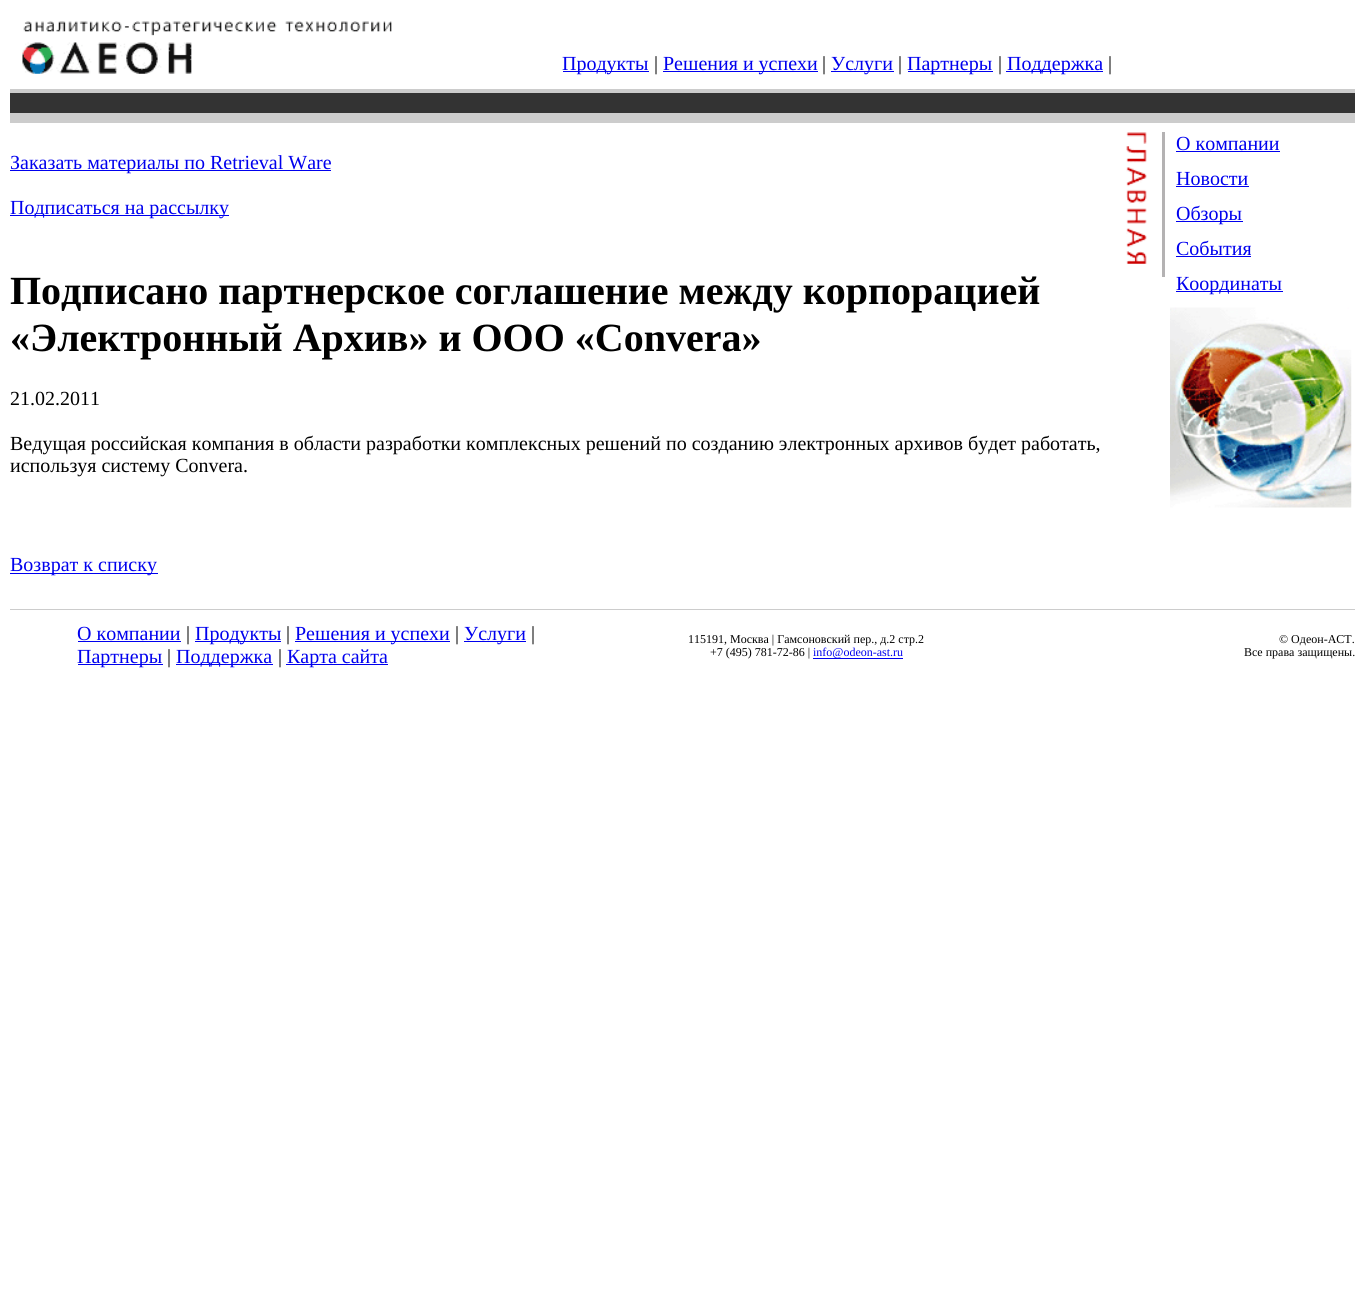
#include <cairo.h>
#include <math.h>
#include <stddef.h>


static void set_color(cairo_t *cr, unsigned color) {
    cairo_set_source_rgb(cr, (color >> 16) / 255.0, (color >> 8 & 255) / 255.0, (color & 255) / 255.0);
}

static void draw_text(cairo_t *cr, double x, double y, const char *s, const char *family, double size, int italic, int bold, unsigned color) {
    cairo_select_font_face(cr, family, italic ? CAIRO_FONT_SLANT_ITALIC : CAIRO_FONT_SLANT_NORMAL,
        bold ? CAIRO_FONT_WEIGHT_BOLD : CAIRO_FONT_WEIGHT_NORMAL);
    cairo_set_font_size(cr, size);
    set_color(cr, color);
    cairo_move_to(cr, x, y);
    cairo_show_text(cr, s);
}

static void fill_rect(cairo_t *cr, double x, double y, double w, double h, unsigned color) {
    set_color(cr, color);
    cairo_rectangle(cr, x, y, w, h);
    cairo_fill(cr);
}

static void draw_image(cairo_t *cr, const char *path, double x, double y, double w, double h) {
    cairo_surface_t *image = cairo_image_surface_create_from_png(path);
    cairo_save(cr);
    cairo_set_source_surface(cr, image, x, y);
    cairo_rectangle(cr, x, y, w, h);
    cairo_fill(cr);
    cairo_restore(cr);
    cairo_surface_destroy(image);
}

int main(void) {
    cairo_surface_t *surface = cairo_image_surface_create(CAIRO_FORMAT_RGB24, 1365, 1298);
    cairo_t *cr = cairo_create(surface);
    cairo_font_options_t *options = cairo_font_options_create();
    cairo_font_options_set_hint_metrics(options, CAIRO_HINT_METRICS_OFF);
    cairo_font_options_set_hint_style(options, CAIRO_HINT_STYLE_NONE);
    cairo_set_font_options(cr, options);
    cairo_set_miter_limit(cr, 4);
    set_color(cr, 0xFFFFFF);
    cairo_paint(cr);
    draw_image(cr, "assets/img1.png", 22, 21, 370, 53);
    fill_rect(cr, 563, 71, 86, 1, 0x0000EE);
    draw_text(cr, 562, 70, "Продукты", "Liberation Serif", 20, 0, 0, 0x0000EE);
    draw_text(cr, 654, 70, "|", "Liberation Serif", 20, 0, 0, 0x000000);
    fill_rect(cr, 663, 71, 155, 1, 0x0000EE);
    draw_text(cr, 663, 70, "Решения и успехи", "Liberation Serif", 20, 0, 0, 0x0000EE);
    draw_text(cr, 822, 70, "|", "Liberation Serif", 20, 0, 0, 0x000000);
    fill_rect(cr, 831, 71, 63, 1, 0x0000EE);
    draw_text(cr, 831, 70, "Услуги", "Liberation Serif", 20, 0, 0, 0x0000EE);
    draw_text(cr, 898, 70, "|", "Liberation Serif", 20, 0, 0, 0x000000);
    fill_rect(cr, 908, 71, 85, 1, 0x0000EE);
    draw_text(cr, 907, 70, "Партнеры", "Liberation Serif", 20, 0, 0, 0x0000EE);
    draw_text(cr, 998, 70, "|", "Liberation Serif", 20, 0, 0, 0x000000);
    fill_rect(cr, 1006, 71, 97, 1, 0x0000EE);
    draw_text(cr, 1007, 70, "Поддержка", "Liberation Serif", 20, 0, 0, 0x0000EE);
    draw_text(cr, 1108, 70, "|", "Liberation Serif", 20, 0, 0, 0x000000);
    fill_rect(cr, 10, 89, 1345, 4, 0xCCCCCC);
    fill_rect(cr, 10, 93, 1345, 20, 0x333333);
    fill_rect(cr, 10, 113, 1345, 10, 0xCCCCCC);
    fill_rect(cr, 10, 170, 321, 1, 0x0000EE);
    draw_text(cr, 10, 169, "Заказать материалы по Retrieval Ware", "Liberation Serif", 20, 0, 0, 0x0000EE);
    fill_rect(cr, 10, 215, 219, 1, 0x0000EE);
    draw_text(cr, 10, 214, "Подписаться на рассылку", "Liberation Serif", 20, 0, 0, 0x0000EE);
    draw_image(cr, "assets/img2.png", 1126, 132, 21, 132);
    fill_rect(cr, 1162, 132, 3, 145, 0xB4B2B3);
    draw_text(cr, 1176, 150, "О компании", "Liberation Serif", 20, 0, 0, 0x0000EE);
    fill_rect(cr, 1176, 151, 104, 1, 0x0000EE);
    draw_text(cr, 1176, 185, "Новости", "Liberation Serif", 20, 0, 0, 0x0000EE);
    fill_rect(cr, 1176, 186, 73, 1, 0x0000EE);
    fill_rect(cr, 1176, 221, 67, 1, 0x0000EE);
    draw_text(cr, 1176, 220, "Обзоры", "Liberation Serif", 20, 0, 0, 0x0000EE);
    draw_text(cr, 1176, 255, "События", "Liberation Serif", 20, 0, 0, 0x0000EE);
    fill_rect(cr, 1176, 256, 75, 1, 0x0000EE);
    fill_rect(cr, 1176, 291, 107, 1, 0x0000EE);
    draw_text(cr, 1176, 290, "Координаты", "Liberation Serif", 20, 0, 0, 0x0000EE);
    draw_image(cr, "assets/img3.png", 1170, 307, 182, 201);
    draw_text(cr, 10, 304, "Подписано партнерское соглашение между корпорацией", "Liberation Serif", 40, 0, 1, 0x000000);
    draw_text(cr, 10, 351, "«Электронный Архив» и ООО «Convera»", "Liberation Serif", 40, 0, 1, 0x000000);
    draw_text(cr, 10, 405, "21.02.2011", "Liberation Serif", 20, 0, 0, 0x000000);
    draw_text(cr, 10, 450, "Ведущая российская компания в области разработки комплексных решений по созданию электронных архивов будет работать,", "Liberation Serif", 20, 0, 0, 0x000000);
    draw_text(cr, 10, 472, "используя систему Convera.", "Liberation Serif", 20, 0, 0, 0x000000);
    fill_rect(cr, 10, 573, 148, 1, 0x0000EE);
    draw_text(cr, 10, 571, "Возврат к списку", "Liberation Serif", 20, 0, 0, 0x0000EE);
    fill_rect(cr, 10, 609, 1345, 1, 0xCCCCCC);
    draw_text(cr, 77, 640, "О компании", "Liberation Serif", 20, 0, 0, 0x0000EE);
    fill_rect(cr, 78, 641, 103, 1, 0x0000EE);
    draw_text(cr, 186, 640, "|", "Liberation Serif", 20, 0, 0, 0x000000);
    fill_rect(cr, 195, 641, 86, 1, 0x0000EE);
    draw_text(cr, 195, 640, "Продукты", "Liberation Serif", 20, 0, 0, 0x0000EE);
    draw_text(cr, 286, 640, "|", "Liberation Serif", 20, 0, 0, 0x000000);
    fill_rect(cr, 295, 641, 155, 1, 0x0000EE);
    draw_text(cr, 295, 640, "Решения и успехи", "Liberation Serif", 20, 0, 0, 0x0000EE);
    draw_text(cr, 455, 640, "|", "Liberation Serif", 20, 0, 0, 0x000000);
    fill_rect(cr, 464, 641, 62, 1, 0x0000EE);
    draw_text(cr, 464, 640, "Услуги", "Liberation Serif", 20, 0, 0, 0x0000EE);
    draw_text(cr, 531, 640, "|", "Liberation Serif", 20, 0, 0, 0x000000);
    fill_rect(cr, 78, 664, 85, 1, 0x0000EE);
    draw_text(cr, 77, 663, "Партнеры", "Liberation Serif", 20, 0, 0, 0x0000EE);
    draw_text(cr, 167, 663, "|", "Liberation Serif", 20, 0, 0, 0x000000);
    fill_rect(cr, 176, 664, 97, 1, 0x0000EE);
    draw_text(cr, 176, 663, "Поддержка", "Liberation Serif", 20, 0, 0, 0x0000EE);
    draw_text(cr, 278, 663, "|", "Liberation Serif", 20, 0, 0, 0x000000);
    fill_rect(cr, 286, 664, 102, 1, 0x0000EE);
    draw_text(cr, 287, 663, "Карта сайта", "Liberation Serif", 20, 0, 0, 0x0000EE);
    draw_text(cr, 688, 643, "115191, Москва | Гамсоновский пер., д.2 стр.2", "Liberation Serif", 12, 0, 0, 0x000000);
    draw_text(cr, 710, 656, "+7 (495) 781-72-86 |", "Liberation Serif", 12, 0, 0, 0x000000);
    fill_rect(cr, 813, 658, 90, 1, 0x0000EE);
    draw_text(cr, 813, 656, "info@odeon-ast.ru", "Liberation Serif", 12, 0, 0, 0x0000EE);
    draw_text(cr, 1279, 643, "© Одеон-АСТ.", "Liberation Serif", 12, 0, 0, 0x000000);
    draw_text(cr, 1244, 656, "Все права защищены.", "Liberation Serif", 12, 0, 0, 0x000000);
    cairo_surface_write_to_png(surface, "output.png");
    cairo_font_options_destroy(options);
    cairo_destroy(cr);
    cairo_surface_destroy(surface);
    return 0;
}
